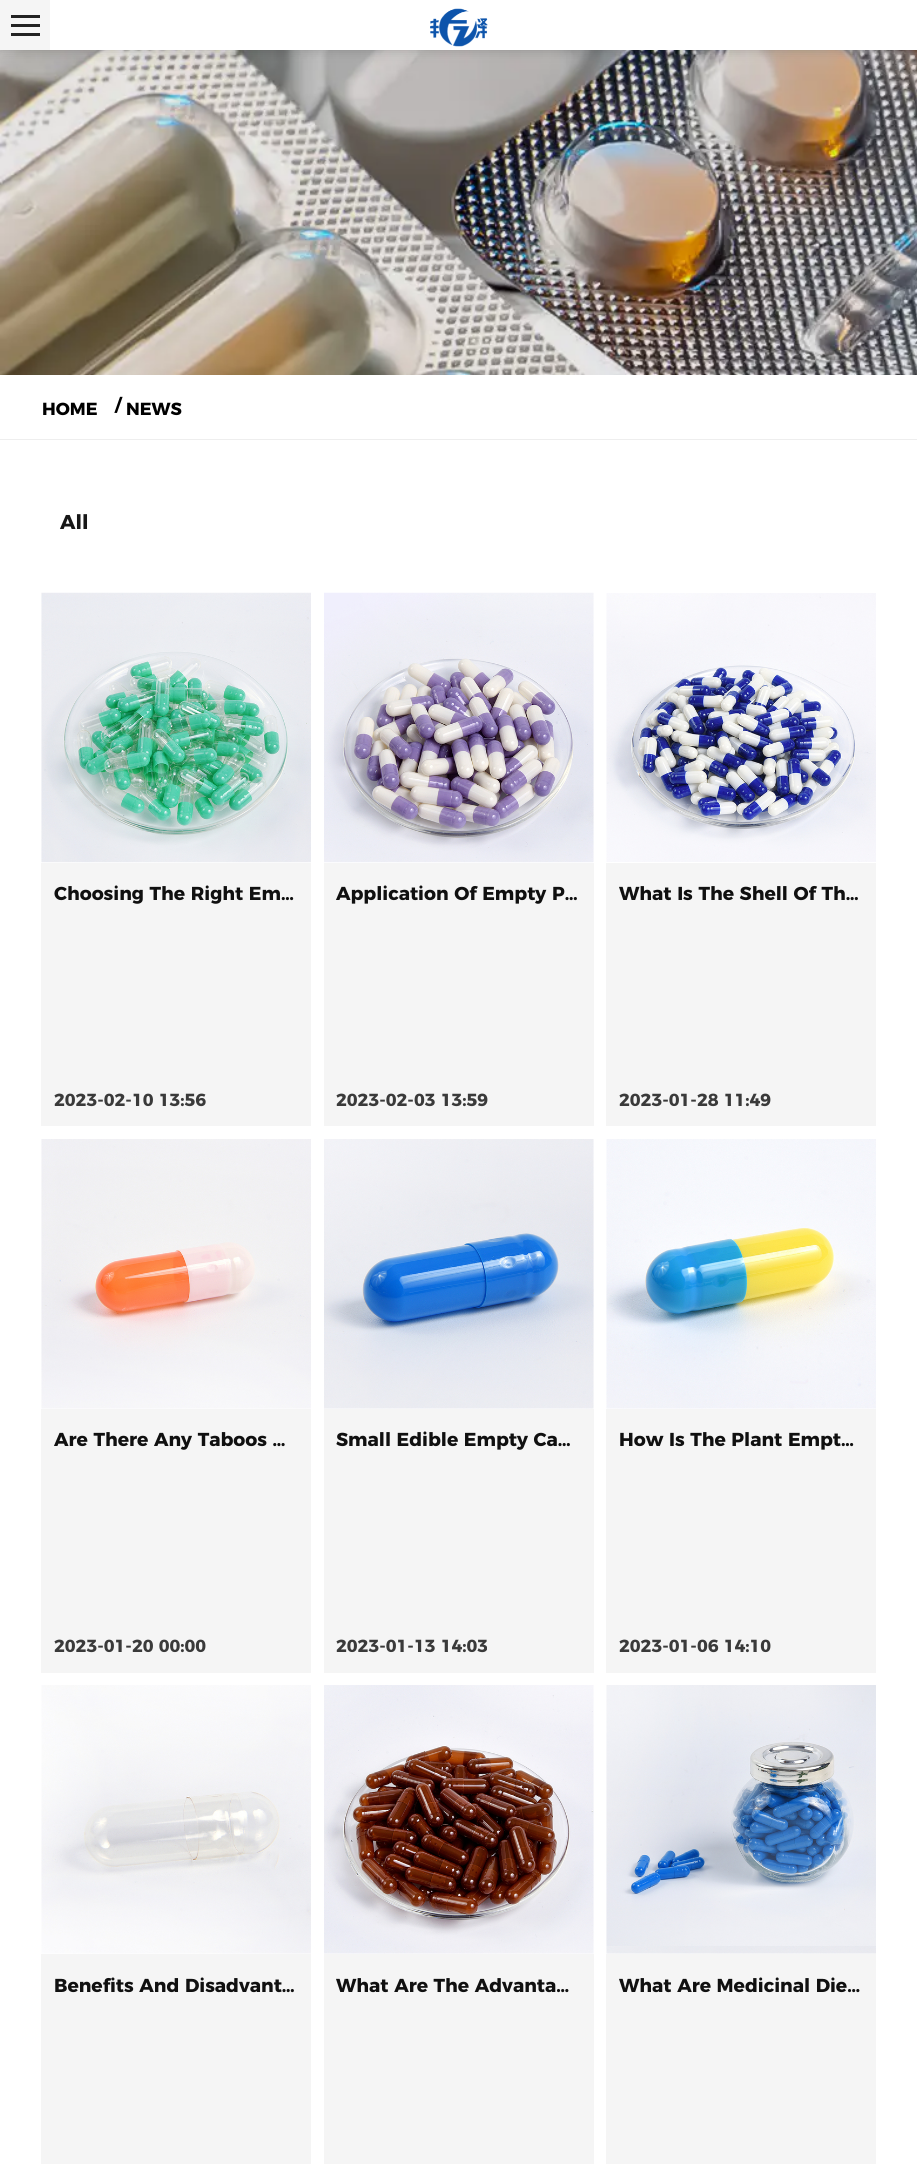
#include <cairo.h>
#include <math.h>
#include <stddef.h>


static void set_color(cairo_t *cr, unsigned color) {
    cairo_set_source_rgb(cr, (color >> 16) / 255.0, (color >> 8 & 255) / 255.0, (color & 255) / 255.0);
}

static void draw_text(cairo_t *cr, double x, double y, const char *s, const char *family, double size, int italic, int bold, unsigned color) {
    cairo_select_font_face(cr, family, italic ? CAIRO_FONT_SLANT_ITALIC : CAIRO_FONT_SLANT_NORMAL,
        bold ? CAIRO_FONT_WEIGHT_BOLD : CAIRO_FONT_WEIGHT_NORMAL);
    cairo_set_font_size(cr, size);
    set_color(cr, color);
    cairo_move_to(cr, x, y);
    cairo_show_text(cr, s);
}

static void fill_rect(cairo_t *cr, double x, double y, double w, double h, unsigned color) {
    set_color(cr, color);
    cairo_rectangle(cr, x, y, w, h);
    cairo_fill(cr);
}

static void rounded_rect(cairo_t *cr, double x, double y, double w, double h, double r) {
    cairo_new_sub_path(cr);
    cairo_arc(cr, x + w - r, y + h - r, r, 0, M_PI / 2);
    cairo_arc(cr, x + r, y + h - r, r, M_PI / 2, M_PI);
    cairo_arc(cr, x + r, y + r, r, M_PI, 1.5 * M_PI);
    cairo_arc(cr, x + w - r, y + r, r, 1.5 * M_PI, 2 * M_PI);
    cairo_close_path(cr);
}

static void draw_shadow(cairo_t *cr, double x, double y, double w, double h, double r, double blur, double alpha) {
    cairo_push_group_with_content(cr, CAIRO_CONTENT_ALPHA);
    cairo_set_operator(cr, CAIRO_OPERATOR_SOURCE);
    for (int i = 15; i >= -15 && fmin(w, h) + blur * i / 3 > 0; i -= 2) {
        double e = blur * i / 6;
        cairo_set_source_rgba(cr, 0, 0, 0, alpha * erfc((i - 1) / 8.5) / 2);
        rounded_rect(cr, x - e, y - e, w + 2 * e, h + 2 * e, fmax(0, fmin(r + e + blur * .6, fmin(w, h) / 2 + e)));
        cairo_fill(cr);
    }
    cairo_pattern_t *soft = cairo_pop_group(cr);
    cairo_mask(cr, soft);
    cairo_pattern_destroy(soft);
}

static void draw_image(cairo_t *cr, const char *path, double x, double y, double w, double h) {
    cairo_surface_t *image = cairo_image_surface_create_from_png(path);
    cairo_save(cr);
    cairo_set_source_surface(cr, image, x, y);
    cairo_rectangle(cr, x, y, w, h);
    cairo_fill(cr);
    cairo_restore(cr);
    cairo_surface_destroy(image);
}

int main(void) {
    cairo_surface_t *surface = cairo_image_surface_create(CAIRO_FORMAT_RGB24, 917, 2164);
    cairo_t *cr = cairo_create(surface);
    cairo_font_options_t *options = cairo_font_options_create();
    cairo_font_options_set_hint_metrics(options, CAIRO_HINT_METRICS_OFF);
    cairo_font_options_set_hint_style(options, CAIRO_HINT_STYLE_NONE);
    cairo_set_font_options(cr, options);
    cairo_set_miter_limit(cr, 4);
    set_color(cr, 0xFFFFFF);
    cairo_paint(cr);
    draw_image(cr, "assets/img2.png", 0, 50, 917, 325);
    set_color(cr, 0x000000);
    draw_shadow(cr, 0, 0, 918, 50, 0, 6, 0.2);
    fill_rect(cr, 50, 0, 867, 50, 0xFFFFFF);
    draw_image(cr, "assets/img1.png", 430, 8, 58, 39);
    fill_rect(cr, 0, 0, 50, 50, 0xF5F5F5);
    fill_rect(cr, 11, 15, 29, 3, 0x222222);
    fill_rect(cr, 11, 24, 29, 3, 0x222222);
    fill_rect(cr, 11, 33, 29, 3, 0x222222);
    fill_rect(cr, 0, 439, 917, 1, 0xEEEEEE);
    draw_text(cr, 42, 415, "HOME", "Montserrat", 17.5, 0, 1, 0x000000);
    draw_text(cr, 115, 411, "/", "Montserrat", 17.5, 0, 1, 0x000000);
    draw_text(cr, 126, 415, "NEWS", "Montserrat", 17.5, 0, 1, 0x000000);
    draw_text(cr, 60, 529, "All", "Montserrat", 20, 0, 1, 0x171717);
    draw_image(cr, "assets/img3.png", 41, 592, 270, 271);
    fill_rect(cr, 41, 863, 270, 263, 0xF5F5F5);
    draw_text(cr, 54, 900, "Choosing The Right Em…", "Montserrat", 18.75, 0, 1, 0x101010);
    draw_text(cr, 54, 1106, "2023-02-10 13:56", "Montserrat", 17.5, 0, 1, 0x3A3A3A);
    draw_image(cr, "assets/img4.png", 324, 592, 270, 271);
    fill_rect(cr, 324, 863, 270, 263, 0xF5F5F5);
    draw_text(cr, 336, 900, "Application Of Empty P…", "Montserrat", 18.75, 0, 1, 0x101010);
    draw_text(cr, 336, 1106, "2023-02-03 13:59", "Montserrat", 17.5, 0, 1, 0x3A3A3A);
    draw_image(cr, "assets/img5.png", 606, 593, 270, 269);
    fill_rect(cr, 606, 863, 270, 263, 0xF5F5F5);
    draw_text(cr, 619, 900, "What Is The Shell Of Th…", "Montserrat", 18.75, 0, 1, 0x101010);
    draw_text(cr, 619, 1106, "2023-01-28 11:49", "Montserrat", 17.5, 0, 1, 0x3A3A3A);
    draw_image(cr, "assets/img6.png", 41, 1139, 270, 270);
    fill_rect(cr, 41, 1409, 270, 264, 0xF5F5F5);
    draw_text(cr, 54, 1446, "Are There Any Taboos …", "Montserrat", 18.75, 0, 1, 0x101010);
    draw_text(cr, 54, 1652, "2023-01-20 00:00", "Montserrat", 17.5, 0, 1, 0x3A3A3A);
    draw_image(cr, "assets/img7.png", 324, 1139, 270, 270);
    fill_rect(cr, 324, 1409, 270, 264, 0xF5F5F5);
    draw_text(cr, 336, 1446, "Small Edible Empty Ca…", "Montserrat", 18.75, 0, 1, 0x101010);
    draw_text(cr, 336, 1652, "2023-01-13 14:03", "Montserrat", 17.5, 0, 1, 0x3A3A3A);
    draw_image(cr, "assets/img8.png", 606, 1139, 270, 270);
    fill_rect(cr, 606, 1409, 270, 264, 0xF5F5F5);
    draw_text(cr, 619, 1446, "How Is The Plant Empt…", "Montserrat", 18.75, 0, 1, 0x101010);
    draw_text(cr, 619, 1652, "2023-01-06 14:10", "Montserrat", 17.5, 0, 1, 0x3A3A3A);
    draw_image(cr, "assets/img9.png", 41, 1685, 270, 269);
    fill_rect(cr, 41, 1954, 270, 210, 0xF5F5F5);
    draw_text(cr, 54, 1992, "Benefits And Disadvant…", "Montserrat", 18.75, 0, 1, 0x101010);
    draw_image(cr, "assets/img10.png", 324, 1685, 270, 269);
    fill_rect(cr, 324, 1954, 270, 210, 0xF5F5F5);
    draw_text(cr, 336, 1992, "What Are The Advanta…", "Montserrat", 18.75, 0, 1, 0x101010);
    draw_image(cr, "assets/img11.png", 606, 1685, 270, 269);
    fill_rect(cr, 606, 1954, 270, 210, 0xF5F5F5);
    draw_text(cr, 619, 1992, "What Are Medicinal Die…", "Montserrat", 18.75, 0, 1, 0x101010);
    cairo_surface_write_to_png(surface, "output.png");
    cairo_font_options_destroy(options);
    cairo_destroy(cr);
    cairo_surface_destroy(surface);
    return 0;
}
